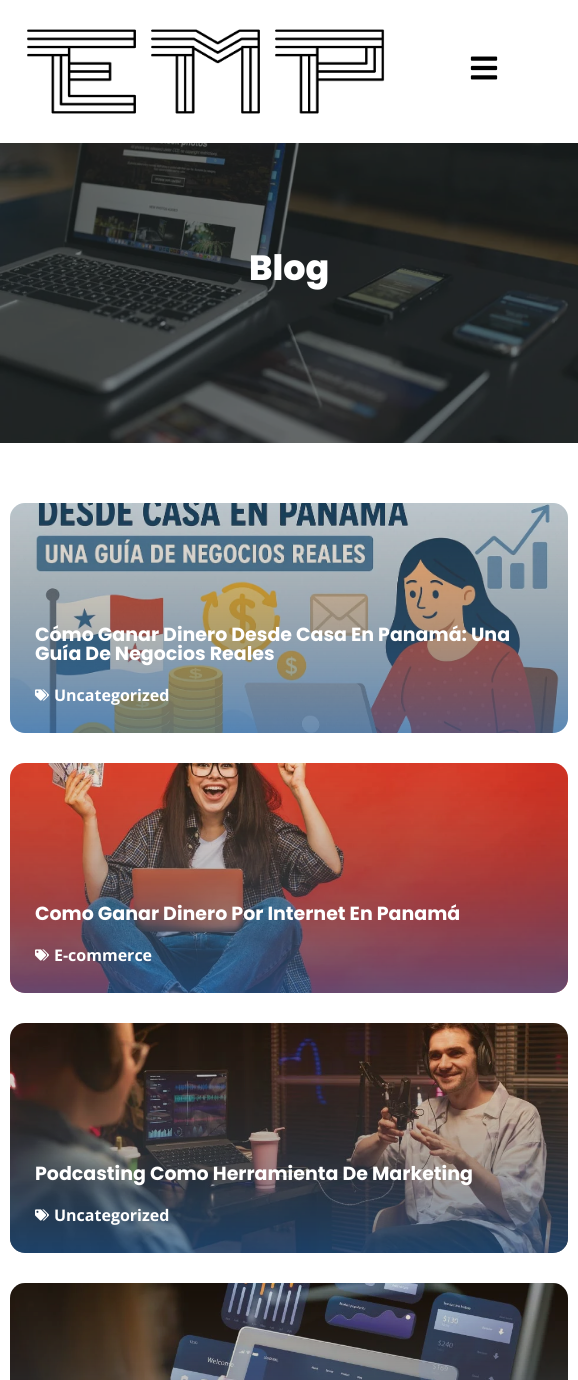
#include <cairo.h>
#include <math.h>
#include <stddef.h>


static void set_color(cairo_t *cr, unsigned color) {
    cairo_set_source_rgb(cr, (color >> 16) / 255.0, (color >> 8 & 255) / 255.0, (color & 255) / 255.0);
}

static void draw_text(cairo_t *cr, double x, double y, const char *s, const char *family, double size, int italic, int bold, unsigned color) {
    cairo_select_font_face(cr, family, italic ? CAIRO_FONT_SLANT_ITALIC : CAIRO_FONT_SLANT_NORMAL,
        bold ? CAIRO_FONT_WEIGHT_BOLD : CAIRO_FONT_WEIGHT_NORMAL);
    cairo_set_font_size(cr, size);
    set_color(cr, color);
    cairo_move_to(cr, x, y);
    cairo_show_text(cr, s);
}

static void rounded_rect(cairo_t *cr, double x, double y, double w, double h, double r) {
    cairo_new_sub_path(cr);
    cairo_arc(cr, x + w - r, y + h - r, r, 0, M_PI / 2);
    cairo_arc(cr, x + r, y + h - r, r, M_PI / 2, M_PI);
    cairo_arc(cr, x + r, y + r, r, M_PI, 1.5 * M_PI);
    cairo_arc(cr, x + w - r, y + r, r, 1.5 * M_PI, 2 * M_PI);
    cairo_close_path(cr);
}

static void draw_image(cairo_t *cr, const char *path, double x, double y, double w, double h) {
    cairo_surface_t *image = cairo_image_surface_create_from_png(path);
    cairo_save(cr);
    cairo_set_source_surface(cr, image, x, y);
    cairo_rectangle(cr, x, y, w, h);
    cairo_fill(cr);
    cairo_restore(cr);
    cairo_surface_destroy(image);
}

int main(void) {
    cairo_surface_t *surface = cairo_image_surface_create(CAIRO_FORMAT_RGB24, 578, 1380);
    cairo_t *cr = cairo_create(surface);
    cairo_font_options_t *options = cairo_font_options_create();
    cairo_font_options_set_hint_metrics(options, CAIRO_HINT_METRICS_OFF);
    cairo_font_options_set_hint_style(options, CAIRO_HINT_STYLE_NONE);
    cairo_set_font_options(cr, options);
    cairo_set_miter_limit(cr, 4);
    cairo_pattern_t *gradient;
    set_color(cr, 0xFFFFFF);
    cairo_paint(cr);
    draw_image(cr, "assets/img1.png", 27, 29, 358, 85);
    draw_image(cr, "assets/img2.png", 470, 56, 28, 24);
    draw_image(cr, "assets/img3.png", 0, 143, 578, 300);
    draw_text(cr, 249, 280, "Blog", "Poppins ExtraBold", 35, 0, 0, 0xFFFFFF);
    draw_image(cr, "assets/img4.png", 10, 503, 558, 230);
    gradient = cairo_pattern_create_linear(289, 503, 289, 733);
    cairo_pattern_add_color_stop_rgba(gradient, 0, 0.525, 0.337, 0.153, 0.15);
    cairo_pattern_add_color_stop_rgba(gradient, 1, 0.149, 0.369, 0.604, 0.65);
    cairo_set_source(cr, gradient);
    cairo_pattern_destroy(gradient);
    rounded_rect(cr, 10, 503, 558, 230, 15);
    cairo_fill(cr);
    draw_text(cr, 35, 641, "Cómo Ganar Dinero Desde Casa En Panamá: Una", "Poppins", 19, 0, 1, 0xFFFFFF);
    draw_text(cr, 35, 660, "Guía De Negocios Reales", "Poppins", 19, 0, 1, 0xFFFFFF);
    draw_image(cr, "assets/img5.png", 35, 689, 14, 12);
    draw_text(cr, 54, 701, "Uncategorized", "Open Sans", 16, 0, 1, 0xFFFFFF);
    draw_image(cr, "assets/img6.png", 10, 763, 558, 230);
    gradient = cairo_pattern_create_linear(289, 763, 289, 993);
    cairo_pattern_add_color_stop_rgba(gradient, 0, 0.525, 0.337, 0.153, 0.15);
    cairo_pattern_add_color_stop_rgba(gradient, 1, 0.149, 0.369, 0.604, 0.65);
    cairo_set_source(cr, gradient);
    cairo_pattern_destroy(gradient);
    rounded_rect(cr, 10, 763, 558, 230, 15);
    cairo_fill(cr);
    draw_text(cr, 35, 920, "Como Ganar Dinero Por Internet En Panamá", "Poppins", 19, 0, 1, 0xFFFFFF);
    draw_image(cr, "assets/img7.png", 35, 949, 14, 12);
    draw_text(cr, 54, 961, "E-commerce", "Open Sans", 16, 0, 1, 0xFFFFFF);
    draw_image(cr, "assets/img8.png", 10, 1023, 558, 230);
    gradient = cairo_pattern_create_linear(289, 1023, 289, 1253);
    cairo_pattern_add_color_stop_rgba(gradient, 0, 0.525, 0.337, 0.153, 0.15);
    cairo_pattern_add_color_stop_rgba(gradient, 1, 0.149, 0.369, 0.604, 0.65);
    cairo_set_source(cr, gradient);
    cairo_pattern_destroy(gradient);
    rounded_rect(cr, 10, 1023, 558, 230, 15);
    cairo_fill(cr);
    draw_text(cr, 35, 1180, "Podcasting Como Herramienta De Marketing", "Poppins", 19, 0, 1, 0xFFFFFF);
    draw_image(cr, "assets/img9.png", 35, 1209, 14, 12);
    draw_text(cr, 54, 1221, "Uncategorized", "Open Sans", 16, 0, 1, 0xFFFFFF);
    draw_image(cr, "assets/img10.png", 10, 1283, 558, 97);
    gradient = cairo_pattern_create_linear(289, 1283, 289, 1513);
    cairo_pattern_add_color_stop_rgba(gradient, 0, 0.525, 0.337, 0.153, 0.15);
    cairo_pattern_add_color_stop_rgba(gradient, 1, 0.149, 0.369, 0.604, 0.65);
    cairo_set_source(cr, gradient);
    cairo_pattern_destroy(gradient);
    rounded_rect(cr, 10, 1283, 558, 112, 15);
    cairo_fill(cr);
    cairo_surface_write_to_png(surface, "output.png");
    cairo_font_options_destroy(options);
    cairo_destroy(cr);
    cairo_surface_destroy(surface);
    return 0;
}
